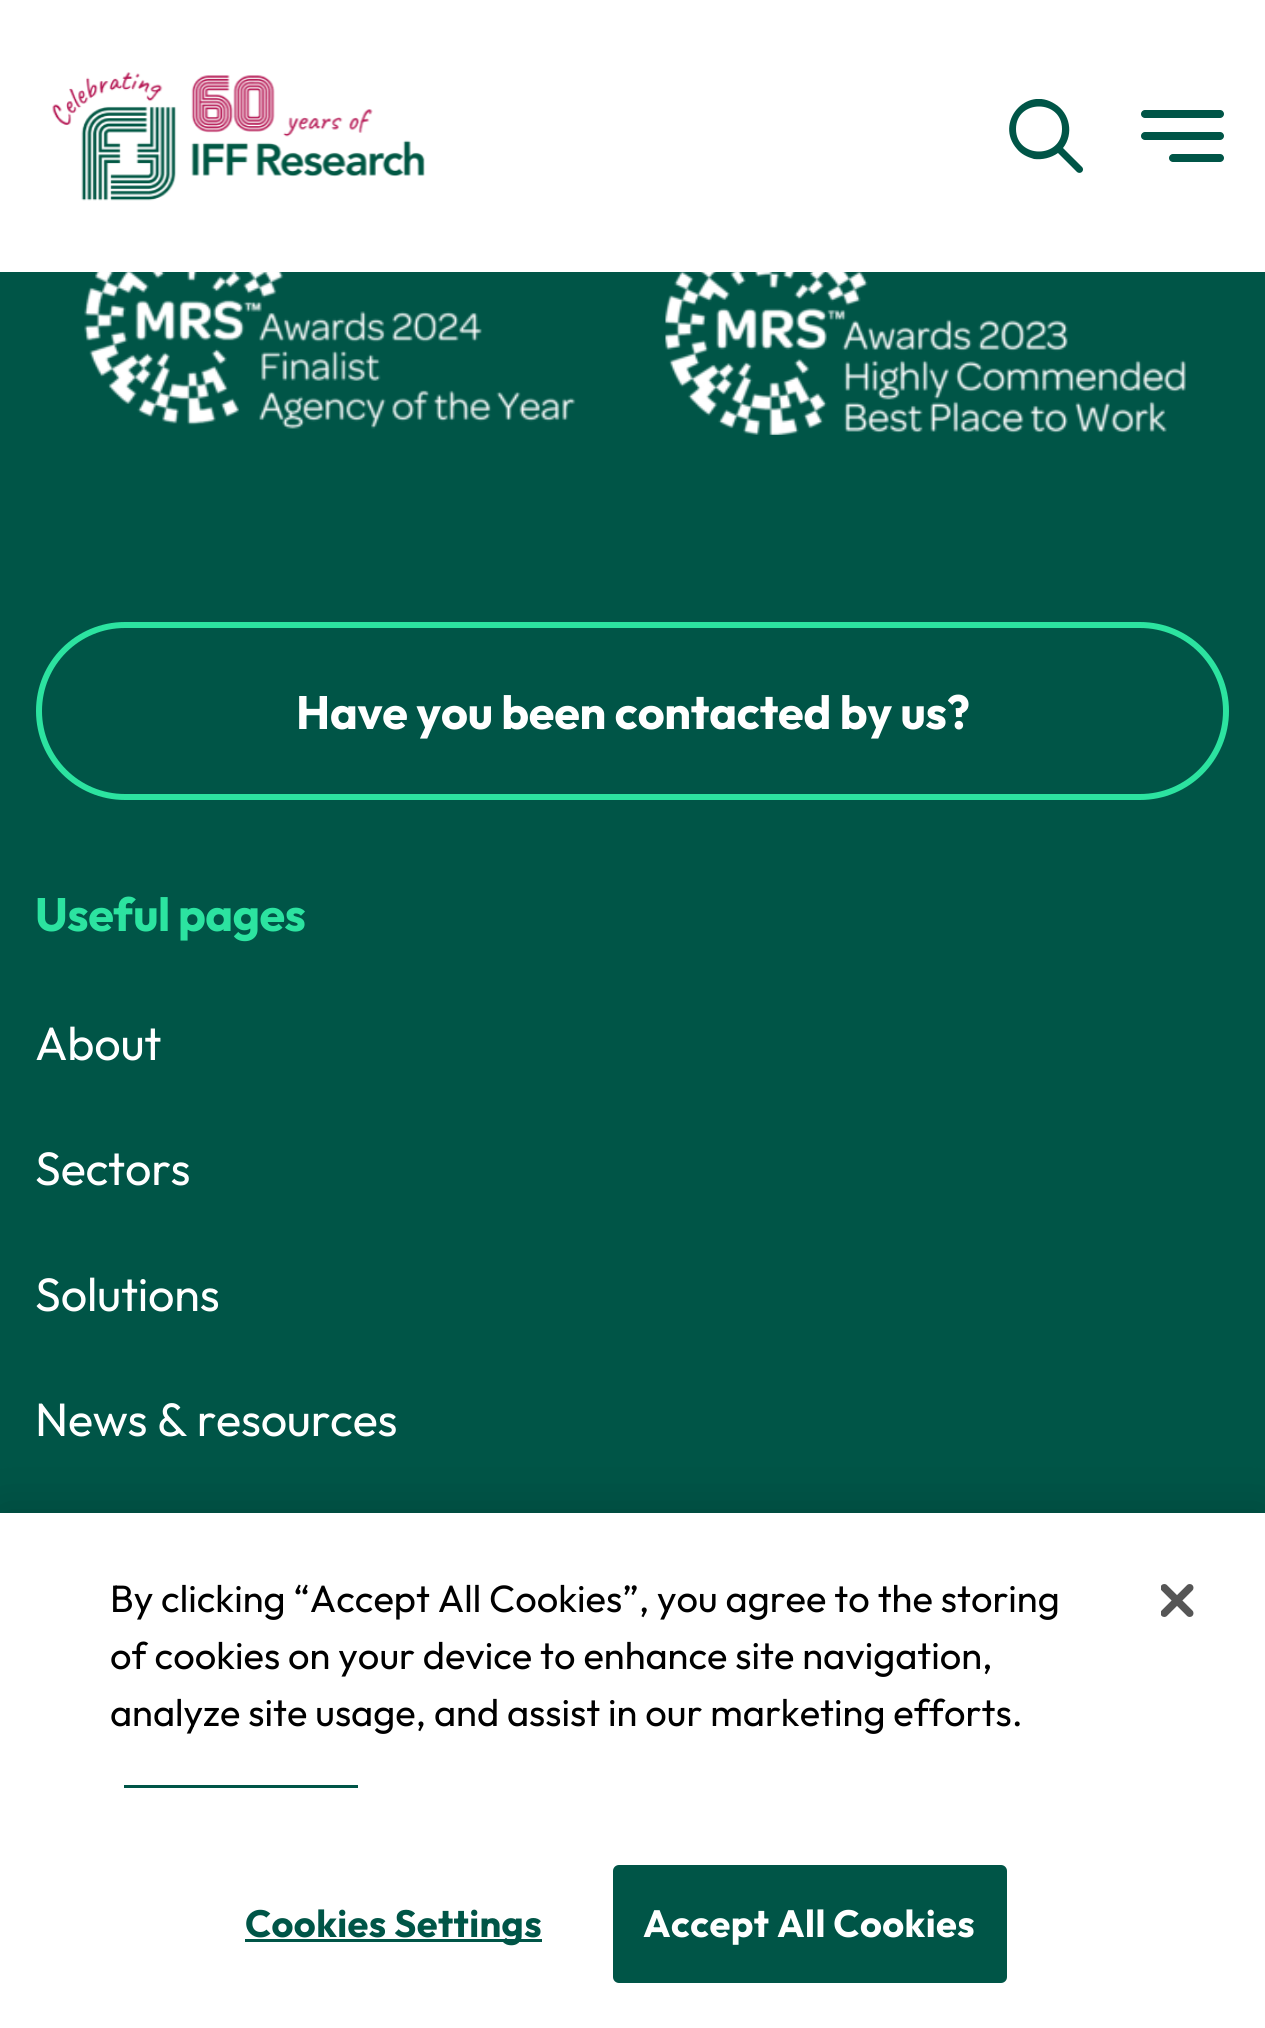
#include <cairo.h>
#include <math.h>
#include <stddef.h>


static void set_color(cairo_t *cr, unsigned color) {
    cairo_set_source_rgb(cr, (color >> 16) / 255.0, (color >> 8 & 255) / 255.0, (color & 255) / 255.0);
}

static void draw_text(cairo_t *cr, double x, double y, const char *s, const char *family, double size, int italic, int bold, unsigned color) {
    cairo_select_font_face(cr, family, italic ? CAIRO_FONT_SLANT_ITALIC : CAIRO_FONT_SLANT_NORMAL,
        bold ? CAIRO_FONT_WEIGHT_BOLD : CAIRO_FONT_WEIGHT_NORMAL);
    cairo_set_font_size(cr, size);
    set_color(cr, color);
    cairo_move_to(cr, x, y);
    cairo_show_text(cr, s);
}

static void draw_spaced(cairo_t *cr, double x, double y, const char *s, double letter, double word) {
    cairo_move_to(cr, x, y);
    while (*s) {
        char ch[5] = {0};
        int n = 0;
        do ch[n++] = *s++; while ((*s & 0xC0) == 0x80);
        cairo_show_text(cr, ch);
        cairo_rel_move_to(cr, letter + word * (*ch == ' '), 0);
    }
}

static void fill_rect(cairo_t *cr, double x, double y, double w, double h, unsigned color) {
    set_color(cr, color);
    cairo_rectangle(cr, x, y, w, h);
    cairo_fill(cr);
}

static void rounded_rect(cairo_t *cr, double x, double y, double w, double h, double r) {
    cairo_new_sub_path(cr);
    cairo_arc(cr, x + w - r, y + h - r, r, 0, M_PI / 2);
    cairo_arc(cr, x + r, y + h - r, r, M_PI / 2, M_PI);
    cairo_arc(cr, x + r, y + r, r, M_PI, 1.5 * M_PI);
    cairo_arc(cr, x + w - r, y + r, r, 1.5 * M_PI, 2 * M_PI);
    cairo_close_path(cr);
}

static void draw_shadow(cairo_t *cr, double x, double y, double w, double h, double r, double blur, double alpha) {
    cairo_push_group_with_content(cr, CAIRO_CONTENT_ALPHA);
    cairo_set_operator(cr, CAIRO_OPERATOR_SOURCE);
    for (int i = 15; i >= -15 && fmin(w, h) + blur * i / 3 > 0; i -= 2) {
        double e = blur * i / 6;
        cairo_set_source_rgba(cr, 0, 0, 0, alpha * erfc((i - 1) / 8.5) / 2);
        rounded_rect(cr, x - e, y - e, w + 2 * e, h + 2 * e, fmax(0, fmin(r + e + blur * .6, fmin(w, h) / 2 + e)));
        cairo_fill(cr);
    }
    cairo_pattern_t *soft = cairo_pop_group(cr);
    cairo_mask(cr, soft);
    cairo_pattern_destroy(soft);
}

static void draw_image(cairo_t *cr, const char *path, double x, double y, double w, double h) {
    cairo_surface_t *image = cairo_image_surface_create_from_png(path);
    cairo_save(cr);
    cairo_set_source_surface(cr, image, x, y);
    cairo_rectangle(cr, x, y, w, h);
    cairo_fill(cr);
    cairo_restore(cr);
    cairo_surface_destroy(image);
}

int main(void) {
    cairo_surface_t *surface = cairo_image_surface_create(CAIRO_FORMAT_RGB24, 1265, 2028);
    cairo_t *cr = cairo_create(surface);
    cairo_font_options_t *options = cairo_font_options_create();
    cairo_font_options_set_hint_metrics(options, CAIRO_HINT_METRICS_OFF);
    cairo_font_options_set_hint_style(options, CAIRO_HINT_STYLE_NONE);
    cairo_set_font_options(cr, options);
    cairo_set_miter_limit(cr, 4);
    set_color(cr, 0x005547);
    cairo_paint(cr);
    fill_rect(cr, 0, 0, 1265, 272, 0xFFFFFF);
    draw_image(cr, "assets/img1.png", 52, 72, 373, 129);
    cairo_save(cr);
    cairo_rectangle(cr, 1009, 99, 75, 74);
    cairo_clip(cr);
    set_color(cr, 0x005547);
    cairo_new_path(cr);
    cairo_move_to(cr, 1082, 167);
    cairo_line_to(cr, 1063, 148);
    cairo_curve_to(cr, 1074, 134, 1070, 113, 1055, 104);
    cairo_curve_to(cr, 1026, 85, 994, 123, 1017, 149);
    cairo_curve_to(cr, 1021, 154, 1027, 157, 1034, 159);
    cairo_curve_to(cr, 1042, 160, 1051, 158, 1058, 153);
    cairo_line_to(cr, 1077, 172);
    cairo_curve_to(cr, 1081, 175, 1085, 170, 1082, 167);
    cairo_close_path(cr);
    cairo_move_to(cr, 1016, 129);
    cairo_curve_to(cr, 1016, 99, 1062, 99, 1062, 129);
    cairo_curve_to(cr, 1062, 159, 1016, 159, 1016, 129);
    cairo_close_path(cr);
    cairo_fill(cr);
    cairo_restore(cr);
    set_color(cr, 0x005547);
    rounded_rect(cr, 1141, 110, 83, 8, 4);
    cairo_fill(cr);
    rounded_rect(cr, 1141, 132, 83, 8, 4);
    cairo_fill(cr);
    rounded_rect(cr, 1169, 154, 55, 8, 4);
    cairo_fill(cr);
    draw_image(cr, "assets/img2.png", 84, 272, 492, 157);
    draw_image(cr, "assets/img3.png", 665, 272, 521, 163);
    rounded_rect(cr, 39, 625, 1187, 172, 86);
    set_color(cr, 0x2CE3A0);
    cairo_set_line_width(cr, 6);
    cairo_stroke(cr);
    cairo_select_font_face(cr, "Outfit", CAIRO_FONT_SLANT_NORMAL, CAIRO_FONT_WEIGHT_BOLD);
    cairo_set_font_size(cr, 46.75);
    set_color(cr, 0xFFFFFF);
    draw_spaced(cr, 296, 729, "Have you been contacted by us?", -0.25, 0);
    set_color(cr, 0x2CE3A0);
    draw_spaced(cr, 35, 931, "Useful pages", -0.5, 0);
    cairo_select_font_face(cr, "Outfit", CAIRO_FONT_SLANT_NORMAL, CAIRO_FONT_WEIGHT_NORMAL);
    set_color(cr, 0xFFFFFF);
    draw_spaced(cr, 35, 1060, "About", -0.25, 0);
    draw_spaced(cr, 35, 1185, "Sectors", -0.25, 0);
    draw_spaced(cr, 35, 1311, "Solutions", -0.25, 0);
    draw_spaced(cr, 35, 1436, "News & resources", -0.25, 0);
    set_color(cr, 0x000000);
    draw_shadow(cr, 0, 1513, 1265, 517, 0, 25, 0.2);
    fill_rect(cr, 0, 1513, 1265, 515, 0xFFFFFF);
    draw_text(cr, 110, 1612, "By clicking “Accept All Cookies”, you agree to the storing", "Outfit", 38, 0, 0, 0x000000);
    draw_text(cr, 110, 1669, "of cookies on your device to enhance site navigation,", "Outfit", 38, 0, 0, 0x000000);
    draw_text(cr, 110, 1726, "analyze site usage, and assist in our marketing efforts.", "Outfit", 38, 0, 0, 0x000000);
    fill_rect(cr, 124, 1785, 234, 3, 0x005547);
    fill_rect(cr, 245, 1939, 297, 3, 0x005547);
    cairo_select_font_face(cr, "Outfit", CAIRO_FONT_SLANT_NORMAL, CAIRO_FONT_WEIGHT_BOLD);
    draw_spaced(cr, 245, 1937, "Cookies Settings", 0.4, 0);
    rounded_rect(cr, 614.5, 1866.5, 391, 115, 4.5);
    cairo_fill_preserve(cr);
    cairo_set_line_width(cr, 3);
    cairo_stroke(cr);
    set_color(cr, 0xFFFFFF);
    draw_spaced(cr, 643, 1937, "Accept All Cookies", 0.4, 0);
    draw_image(cr, "assets/img4.png", 1161, 1584, 33, 33);
    cairo_surface_write_to_png(surface, "output.png");
    cairo_font_options_destroy(options);
    cairo_destroy(cr);
    cairo_surface_destroy(surface);
    return 0;
}
